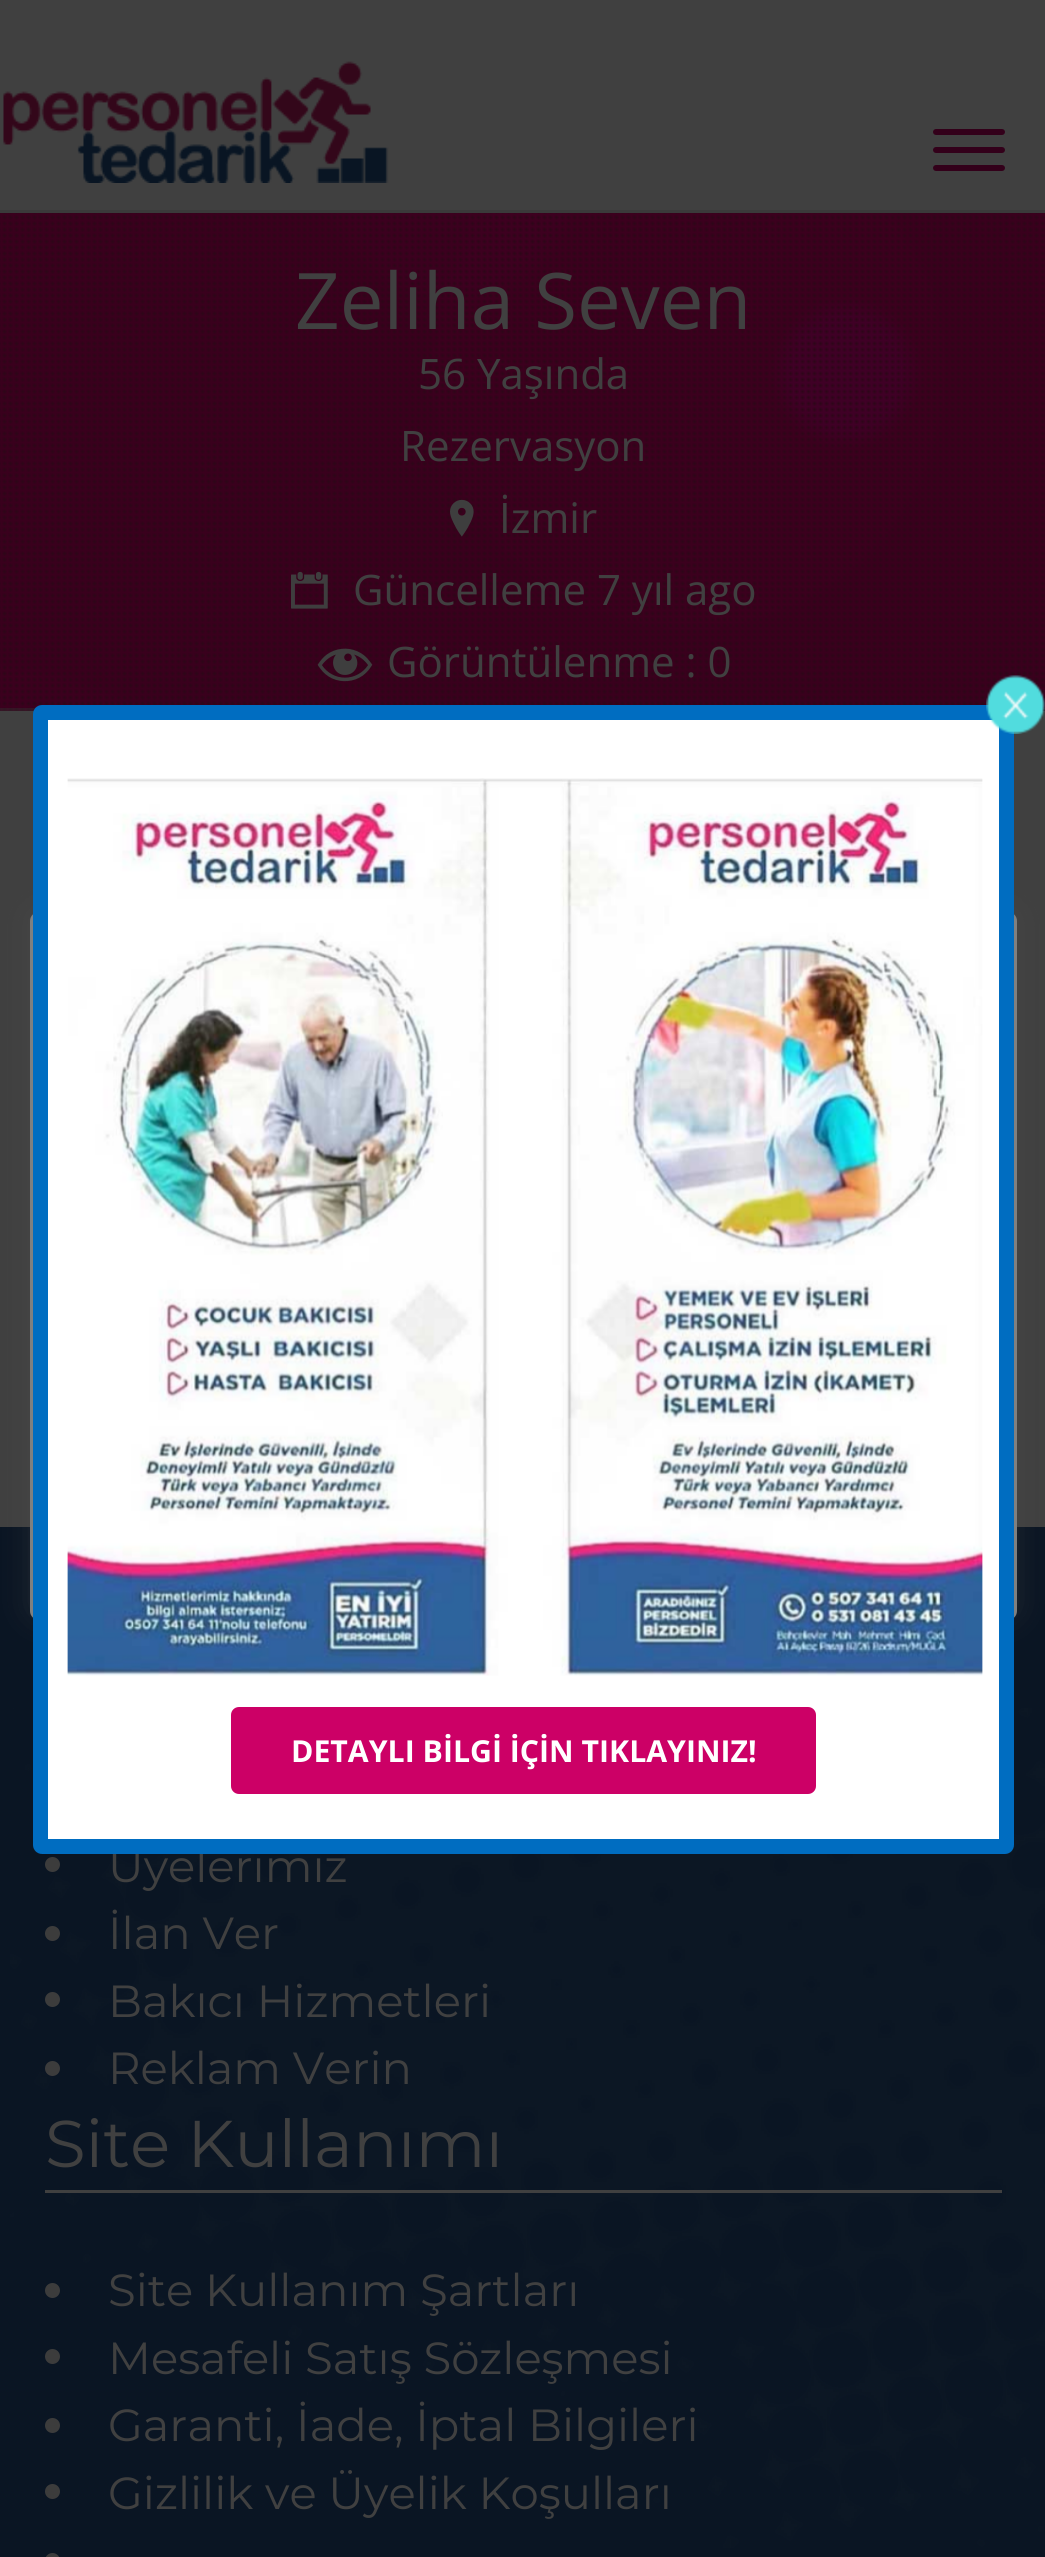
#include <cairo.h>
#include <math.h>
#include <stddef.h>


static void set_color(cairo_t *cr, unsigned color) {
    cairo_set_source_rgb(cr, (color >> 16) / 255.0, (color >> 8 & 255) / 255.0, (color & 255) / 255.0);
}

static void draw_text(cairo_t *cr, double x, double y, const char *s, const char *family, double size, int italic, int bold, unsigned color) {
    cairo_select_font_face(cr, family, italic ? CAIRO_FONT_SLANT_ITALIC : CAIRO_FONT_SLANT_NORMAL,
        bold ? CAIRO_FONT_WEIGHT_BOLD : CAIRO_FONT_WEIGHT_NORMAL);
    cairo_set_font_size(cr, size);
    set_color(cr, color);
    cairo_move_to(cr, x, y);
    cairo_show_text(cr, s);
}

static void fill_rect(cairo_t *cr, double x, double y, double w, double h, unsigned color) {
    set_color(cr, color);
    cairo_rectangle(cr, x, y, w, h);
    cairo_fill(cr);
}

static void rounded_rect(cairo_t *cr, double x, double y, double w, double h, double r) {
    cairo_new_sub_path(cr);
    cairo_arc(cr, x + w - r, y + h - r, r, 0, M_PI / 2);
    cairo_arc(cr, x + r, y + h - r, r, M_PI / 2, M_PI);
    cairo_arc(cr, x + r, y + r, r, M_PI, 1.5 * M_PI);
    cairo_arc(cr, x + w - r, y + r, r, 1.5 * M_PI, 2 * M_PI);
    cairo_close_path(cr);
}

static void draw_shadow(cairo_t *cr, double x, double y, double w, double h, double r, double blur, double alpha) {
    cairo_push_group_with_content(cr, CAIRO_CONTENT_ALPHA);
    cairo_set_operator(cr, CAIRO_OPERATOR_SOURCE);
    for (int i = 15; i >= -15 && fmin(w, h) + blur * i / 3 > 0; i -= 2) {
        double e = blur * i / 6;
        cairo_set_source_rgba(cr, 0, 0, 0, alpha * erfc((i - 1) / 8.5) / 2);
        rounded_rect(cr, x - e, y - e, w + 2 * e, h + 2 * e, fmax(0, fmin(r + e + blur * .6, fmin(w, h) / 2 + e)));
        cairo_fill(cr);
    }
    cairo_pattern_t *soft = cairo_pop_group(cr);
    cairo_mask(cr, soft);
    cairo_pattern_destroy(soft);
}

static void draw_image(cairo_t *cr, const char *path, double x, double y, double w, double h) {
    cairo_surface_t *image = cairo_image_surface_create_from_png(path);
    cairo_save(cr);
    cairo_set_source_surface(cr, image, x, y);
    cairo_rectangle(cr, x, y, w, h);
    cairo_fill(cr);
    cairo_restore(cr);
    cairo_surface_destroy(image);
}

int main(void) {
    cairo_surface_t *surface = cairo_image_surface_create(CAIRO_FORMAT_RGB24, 1045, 2557);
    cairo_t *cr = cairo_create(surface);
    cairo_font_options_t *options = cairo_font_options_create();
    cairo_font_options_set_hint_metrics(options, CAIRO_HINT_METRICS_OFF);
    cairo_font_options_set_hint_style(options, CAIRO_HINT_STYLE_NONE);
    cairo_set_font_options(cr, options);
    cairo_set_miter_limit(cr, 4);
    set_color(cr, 0x404040);
    cairo_paint(cr);
    fill_rect(cr, 0, 210, 1045, 3, 0x3A3A3A);
    draw_image(cr, "assets/img1.png", 3, 61, 386, 122);
    set_color(cr, 0x33001A);
    rounded_rect(cr, 933, 129, 72, 6, 3);
    cairo_fill(cr);
    rounded_rect(cr, 933, 147, 72, 6, 3);
    cairo_fill(cr);
    rounded_rect(cr, 933, 165, 72, 6, 3);
    cairo_fill(cr);
    draw_image(cr, "assets/img2.png", 0, 213, 1045, 498);
    cairo_set_source_rgba(cr, 0.2, 0.2, 0.2, 0.41);
    cairo_rectangle(cr, 0, 708, 1045, 3);
    cairo_fill(cr);
    draw_text(cr, 295, 329, "Zeliha Seven", "Open Sans", 78, 0, 0, 0x404040);
    draw_text(cr, 418, 389, "56 Yaşında", "Open Sans", 42, 0, 0, 0x404040);
    draw_text(cr, 400, 461, "Rezervasyon", "Open Sans", 42, 0, 0, 0x404040);
    draw_image(cr, "assets/img3.png", 450, 499, 24, 38);
    draw_text(cr, 499, 533, "İzmir", "Open Sans", 42, 0, 0, 0x404040);
    draw_image(cr, "assets/img4.png", 291, 571, 37, 38);
    draw_text(cr, 353, 605, "Güncelleme 7 yıl ago", "Open Sans", 42, 0, 0, 0x404040);
    draw_image(cr, "assets/img5.png", 317, 648, 56, 34);
    draw_text(cr, 387, 677, "Görüntülenme : 0", "Open Sans", 42, 0, 0, 0x404040);
    fill_rect(cr, 0, 1527, 1045, 1030, 0x0A1523);
    draw_image(cr, "assets/img6.png", 10, 1708, 1035, 840);
    set_color(cr, 0x3C3C3C);
    cairo_arc(cr, 52.5, 1864.5, 7.5, 0, 2 * M_PI);
    cairo_fill(cr);
    draw_text(cr, 108, 1882, "Üyelerimiz", "Montserrat", 45, 0, 0, 0x404040);
    set_color(cr, 0x3C3C3C);
    cairo_new_path(cr);
    cairo_arc(cr, 52.5, 1933.5, 7.5, 0, 2 * M_PI);
    cairo_fill(cr);
    draw_text(cr, 108, 1949, "İlan Ver", "Montserrat", 45, 0, 0, 0x404040);
    set_color(cr, 0x3C3C3C);
    cairo_new_path(cr);
    cairo_arc(cr, 52.5, 1999.5, 7.5, 0, 2 * M_PI);
    cairo_fill(cr);
    draw_text(cr, 108, 2017, "Bakıcı Hizmetleri", "Montserrat", 45, 0, 0, 0x404040);
    set_color(cr, 0x3C3C3C);
    cairo_new_path(cr);
    cairo_arc(cr, 52.5, 2068.5, 7.5, 0, 2 * M_PI);
    cairo_fill(cr);
    draw_text(cr, 108, 2084, "Reklam Verin", "Montserrat", 45, 0, 0, 0x404040);
    fill_rect(cr, 45, 2190, 957, 3, 0x404040);
    draw_text(cr, 45, 2167, "Site Kullanımı", "Montserrat", 66, 0, 0, 0x404040);
    set_color(cr, 0x3C3C3C);
    cairo_new_path(cr);
    cairo_arc(cr, 52.5, 2290.5, 7.5, 0, 2 * M_PI);
    cairo_fill(cr);
    draw_text(cr, 108, 2306, "Site Kullanım Şartları", "Montserrat", 45, 0, 0, 0x404040);
    set_color(cr, 0x3C3C3C);
    cairo_new_path(cr);
    cairo_arc(cr, 52.5, 2356.5, 7.5, 0, 2 * M_PI);
    cairo_fill(cr);
    draw_text(cr, 108, 2374, "Mesafeli Satış Sözleşmesi", "Montserrat", 45, 0, 0, 0x404040);
    set_color(cr, 0x3C3C3C);
    cairo_new_path(cr);
    cairo_arc(cr, 52.5, 2425.5, 7.5, 0, 2 * M_PI);
    cairo_fill(cr);
    draw_text(cr, 108, 2441, "Garanti, İade, İptal Bilgileri", "Montserrat", 45, 0, 0, 0x404040);
    set_color(cr, 0x3C3C3C);
    cairo_new_path(cr);
    cairo_arc(cr, 52.5, 2491.5, 7.5, 0, 2 * M_PI);
    cairo_fill(cr);
    draw_text(cr, 108, 2509, "Gizlilik ve Üyelik Koşulları", "Montserrat", 45, 0, 0, 0x404040);
    set_color(cr, 0x3C3C3C);
    rounded_rect(cr, 45, 2553, 15, 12, 7.5);
    cairo_fill(cr);
    set_color(cr, 0x565656);
    draw_shadow(cr, 30, 909, 987, 708, 9, 15, 0.3);
    set_color(cr, 0x808080);
    rounded_rect(cr, 30, 912, 987, 708, 9);
    cairo_fill(cr);
    set_color(cr, 0xFFFFFF);
    rounded_rect(cr, 40.5, 712.5, 966, 1134, 1.5);
    cairo_fill_preserve(cr);
    set_color(cr, 0x006DC1);
    cairo_set_line_width(cr, 15);
    cairo_stroke(cr);
    draw_image(cr, "assets/img7.png", 986, 675, 59, 59);
    draw_image(cr, "assets/img8.png", 67, 778, 916, 898);
    set_color(cr, 0xCC0066);
    rounded_rect(cr, 231, 1707, 585, 87, 8);
    cairo_fill(cr);
    draw_text(cr, 291, 1762, "DETAYLI BİLGİ İÇİN TIKLAYINIZ!", "Open Sans", 30.25, 0, 1, 0xFFFFFF);
    cairo_surface_write_to_png(surface, "output.png");
    cairo_font_options_destroy(options);
    cairo_destroy(cr);
    cairo_surface_destroy(surface);
    return 0;
}
